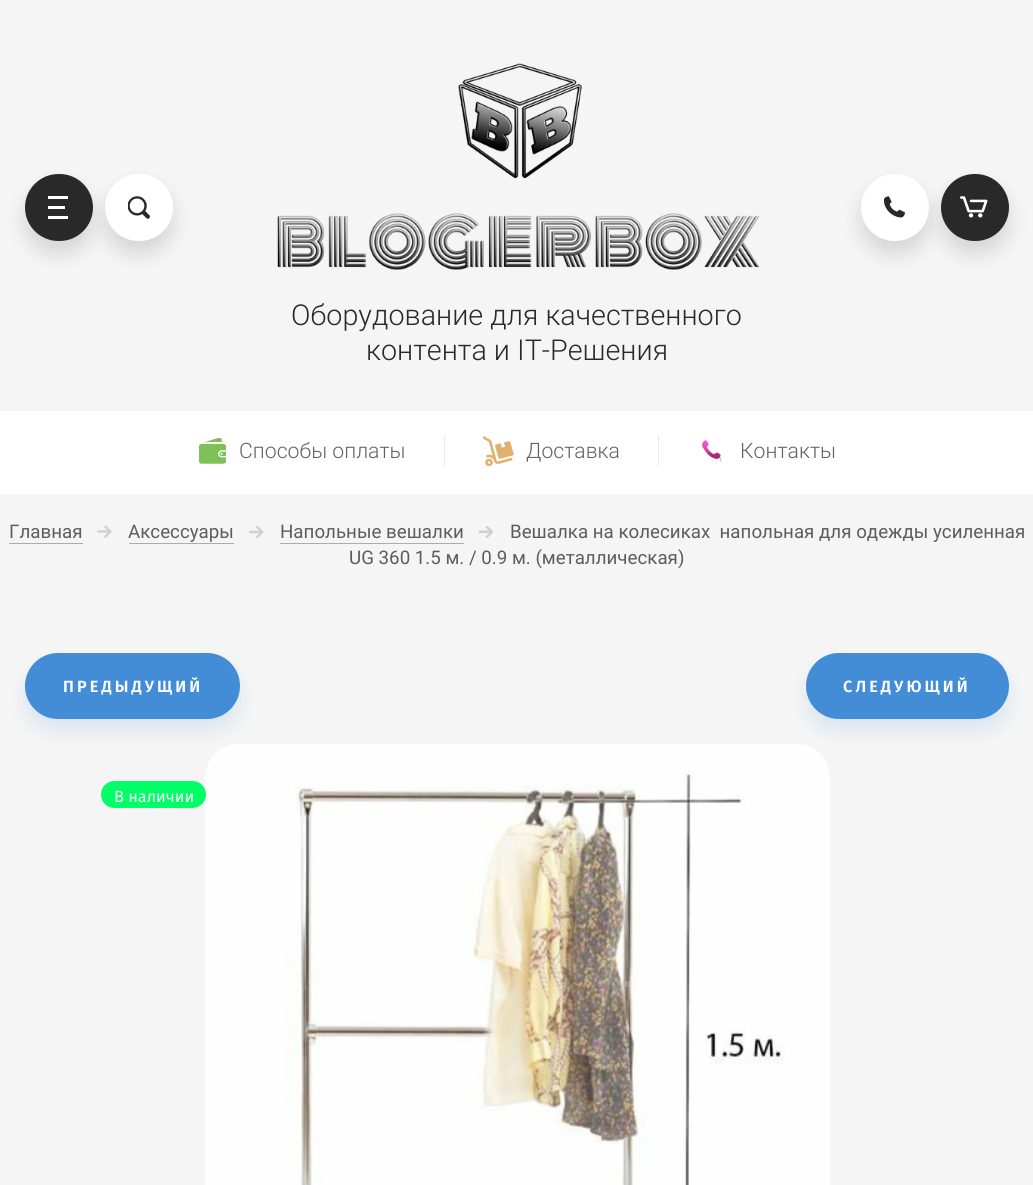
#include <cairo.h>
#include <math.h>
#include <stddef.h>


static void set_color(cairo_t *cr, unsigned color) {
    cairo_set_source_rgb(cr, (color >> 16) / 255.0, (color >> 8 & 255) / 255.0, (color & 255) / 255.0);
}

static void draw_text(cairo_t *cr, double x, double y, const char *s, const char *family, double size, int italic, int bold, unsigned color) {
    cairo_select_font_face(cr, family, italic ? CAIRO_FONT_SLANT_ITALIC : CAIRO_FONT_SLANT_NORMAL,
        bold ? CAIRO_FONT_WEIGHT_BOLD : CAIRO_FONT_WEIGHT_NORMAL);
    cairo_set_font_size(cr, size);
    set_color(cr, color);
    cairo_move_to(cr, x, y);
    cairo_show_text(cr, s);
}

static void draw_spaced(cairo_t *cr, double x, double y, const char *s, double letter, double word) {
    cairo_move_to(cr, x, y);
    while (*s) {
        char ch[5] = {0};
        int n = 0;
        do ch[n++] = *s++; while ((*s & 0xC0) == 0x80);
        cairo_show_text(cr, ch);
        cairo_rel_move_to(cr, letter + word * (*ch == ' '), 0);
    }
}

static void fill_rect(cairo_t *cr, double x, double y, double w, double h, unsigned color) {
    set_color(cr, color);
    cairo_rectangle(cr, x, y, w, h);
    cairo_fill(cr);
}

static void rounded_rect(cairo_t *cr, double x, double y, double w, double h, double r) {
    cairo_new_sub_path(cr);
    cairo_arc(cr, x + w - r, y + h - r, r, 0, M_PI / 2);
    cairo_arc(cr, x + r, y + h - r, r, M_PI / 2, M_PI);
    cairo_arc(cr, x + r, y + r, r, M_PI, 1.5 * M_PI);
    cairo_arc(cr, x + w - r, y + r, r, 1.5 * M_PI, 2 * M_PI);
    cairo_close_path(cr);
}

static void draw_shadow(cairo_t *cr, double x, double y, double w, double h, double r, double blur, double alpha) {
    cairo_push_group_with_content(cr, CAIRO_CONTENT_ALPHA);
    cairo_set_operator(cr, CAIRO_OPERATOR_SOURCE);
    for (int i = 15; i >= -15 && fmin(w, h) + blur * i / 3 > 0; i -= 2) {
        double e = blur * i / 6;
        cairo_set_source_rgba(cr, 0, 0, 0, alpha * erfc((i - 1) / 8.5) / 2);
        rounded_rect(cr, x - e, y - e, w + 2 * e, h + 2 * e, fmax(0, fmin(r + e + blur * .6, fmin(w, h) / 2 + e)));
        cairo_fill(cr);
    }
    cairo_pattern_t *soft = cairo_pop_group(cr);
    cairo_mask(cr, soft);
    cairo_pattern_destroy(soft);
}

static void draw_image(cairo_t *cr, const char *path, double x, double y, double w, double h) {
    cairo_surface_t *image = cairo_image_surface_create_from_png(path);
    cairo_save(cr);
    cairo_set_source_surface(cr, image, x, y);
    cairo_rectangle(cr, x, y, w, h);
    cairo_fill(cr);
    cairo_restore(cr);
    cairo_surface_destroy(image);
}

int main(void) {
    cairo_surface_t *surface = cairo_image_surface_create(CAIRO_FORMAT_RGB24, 1033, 1185);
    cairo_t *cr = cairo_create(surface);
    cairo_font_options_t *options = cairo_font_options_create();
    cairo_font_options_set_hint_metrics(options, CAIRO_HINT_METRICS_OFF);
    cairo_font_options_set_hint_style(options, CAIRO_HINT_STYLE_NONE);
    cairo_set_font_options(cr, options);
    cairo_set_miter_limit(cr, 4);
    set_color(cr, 0xF5F5F5);
    cairo_paint(cr);
    set_color(cr, 0x000000);
    draw_shadow(cr, 105, 186, 68, 68, 34, 9.5, 0.13);
    set_color(cr, 0xFFFFFF);
    rounded_rect(cr, 105, 174, 68, 67, 33.5);
    cairo_fill(cr);
    set_color(cr, 0x000000);
    draw_shadow(cr, 25, 186, 68, 68, 34, 9.5, 0.13);
    set_color(cr, 0x292929);
    rounded_rect(cr, 25, 174, 68, 67, 33.5);
    cairo_fill(cr);
    fill_rect(cr, 48, 196, 20, 3, 0xFFFFFF);
    fill_rect(cr, 48, 206, 17, 3, 0xFFFFFF);
    fill_rect(cr, 48, 216, 20, 3, 0xFFFFFF);
    draw_image(cr, "assets/img1.png", 128, 196, 22, 23);
    set_color(cr, 0x000000);
    draw_shadow(cr, 861, 186, 68, 68, 34, 9.5, 0.13);
    set_color(cr, 0xFFFFFF);
    rounded_rect(cr, 861, 174, 68, 67, 33.5);
    cairo_fill(cr);
    draw_image(cr, "assets/img2.png", 884, 196, 21, 22);
    set_color(cr, 0x000000);
    draw_shadow(cr, 941, 186, 68, 68, 34, 9.5, 0.13);
    set_color(cr, 0x292929);
    rounded_rect(cr, 941, 174, 68, 67, 33.5);
    cairo_fill(cr);
    draw_image(cr, "assets/img3.png", 960, 196, 28, 22);
    draw_image(cr, "assets/img4.png", 277, 63, 482, 207);
    draw_text(cr, 291, 325, "Оборудование для качественного", "Roboto Light", 28.75, 0, 0, 0x292929);
    draw_text(cr, 366, 360, "контента и IT-Решения", "Roboto Light", 28.75, 0, 0, 0x292929);
    fill_rect(cr, 0, 411, 1033, 83, 0xFFFFFF);
    draw_image(cr, "assets/img5.png", 199, 438, 27, 26);
    draw_text(cr, 239, 458, "Способы оплаты", "Roboto Light", 21.25, 0, 0, 0x636262);
    fill_rect(cr, 444, 435, 1, 31, 0xEAEAEA);
    draw_image(cr, "assets/img6.png", 483, 436, 31, 30);
    draw_text(cr, 526, 458, "Доставка", "Roboto Light", 21.25, 0, 0, 0x636262);
    fill_rect(cr, 658, 435, 1, 31, 0xEAEAEA);
    draw_image(cr, "assets/img7.png", 702, 440, 20, 22);
    draw_text(cr, 740, 458, "Контакты", "Roboto Light", 21.25, 0, 0, 0x636262);
    draw_text(cr, 9, 538, "Главная", "Roboto", 18.75, 0, 0, 0x5D5D5D);
    fill_rect(cr, 9, 543, 74, 1, 0xACACAC);
    draw_image(cr, "assets/img8.png", 97, 525, 15, 13);
    draw_text(cr, 128, 538, "Аксессуары", "Roboto", 18.75, 0, 0, 0x5D5D5D);
    fill_rect(cr, 129, 543, 105, 1, 0xACACAC);
    draw_image(cr, "assets/img9.png", 249, 526, 15, 12);
    draw_text(cr, 280, 538, "Напольные вешалки", "Roboto", 18.75, 0, 0, 0x5D5D5D);
    fill_rect(cr, 280, 543, 184, 1, 0xACACAC);
    draw_image(cr, "assets/img10.png", 479, 526, 14, 12);
    draw_text(cr, 510, 538, "Вешалка на колесиках  напольная для одежды усиленная", "Roboto", 18.75, 0, 0, 0x5D5D5D);
    draw_text(cr, 349, 564, "UG 360 1.5 м. / 0.9 м. (металлическая)", "Roboto", 18.75, 0, 0, 0x5D5D5D);
    set_color(cr, 0x438CD6);
    draw_shadow(cr, 25, 665, 215, 66, 33, 9.5, 0.15);
    set_color(cr, 0x438CD6);
    rounded_rect(cr, 25, 653, 215, 66, 33);
    cairo_fill(cr);
    cairo_select_font_face(cr, "Fira Sans SemiBold", CAIRO_FONT_SLANT_NORMAL, CAIRO_FONT_WEIGHT_NORMAL);
    cairo_set_font_size(cr, 16.25);
    set_color(cr, 0xFFFFFF);
    draw_spaced(cr, 63, 692, "ПРЕДЫДУЩИЙ", 3.1, 0);
    set_color(cr, 0x438CD6);
    draw_shadow(cr, 806, 665, 203, 66, 33, 9.5, 0.15);
    set_color(cr, 0x438CD6);
    rounded_rect(cr, 806, 653, 203, 66, 33);
    cairo_fill(cr);
    set_color(cr, 0xFFFFFF);
    draw_spaced(cr, 843, 692, "СЛЕДУЮЩИЙ", 3.1, 0);
    draw_image(cr, "assets/img11.png", 205, 744, 625, 441);
    set_color(cr, 0x00FF66);
    rounded_rect(cr, 101, 781, 105, 27, 13.5);
    cairo_fill(cr);
    draw_text(cr, 114, 802, "В наличии", "Fira Sans", 16.25, 0, 0, 0xFFFFFF);
    cairo_surface_write_to_png(surface, "output.png");
    cairo_font_options_destroy(options);
    cairo_destroy(cr);
    cairo_surface_destroy(surface);
    return 0;
}
